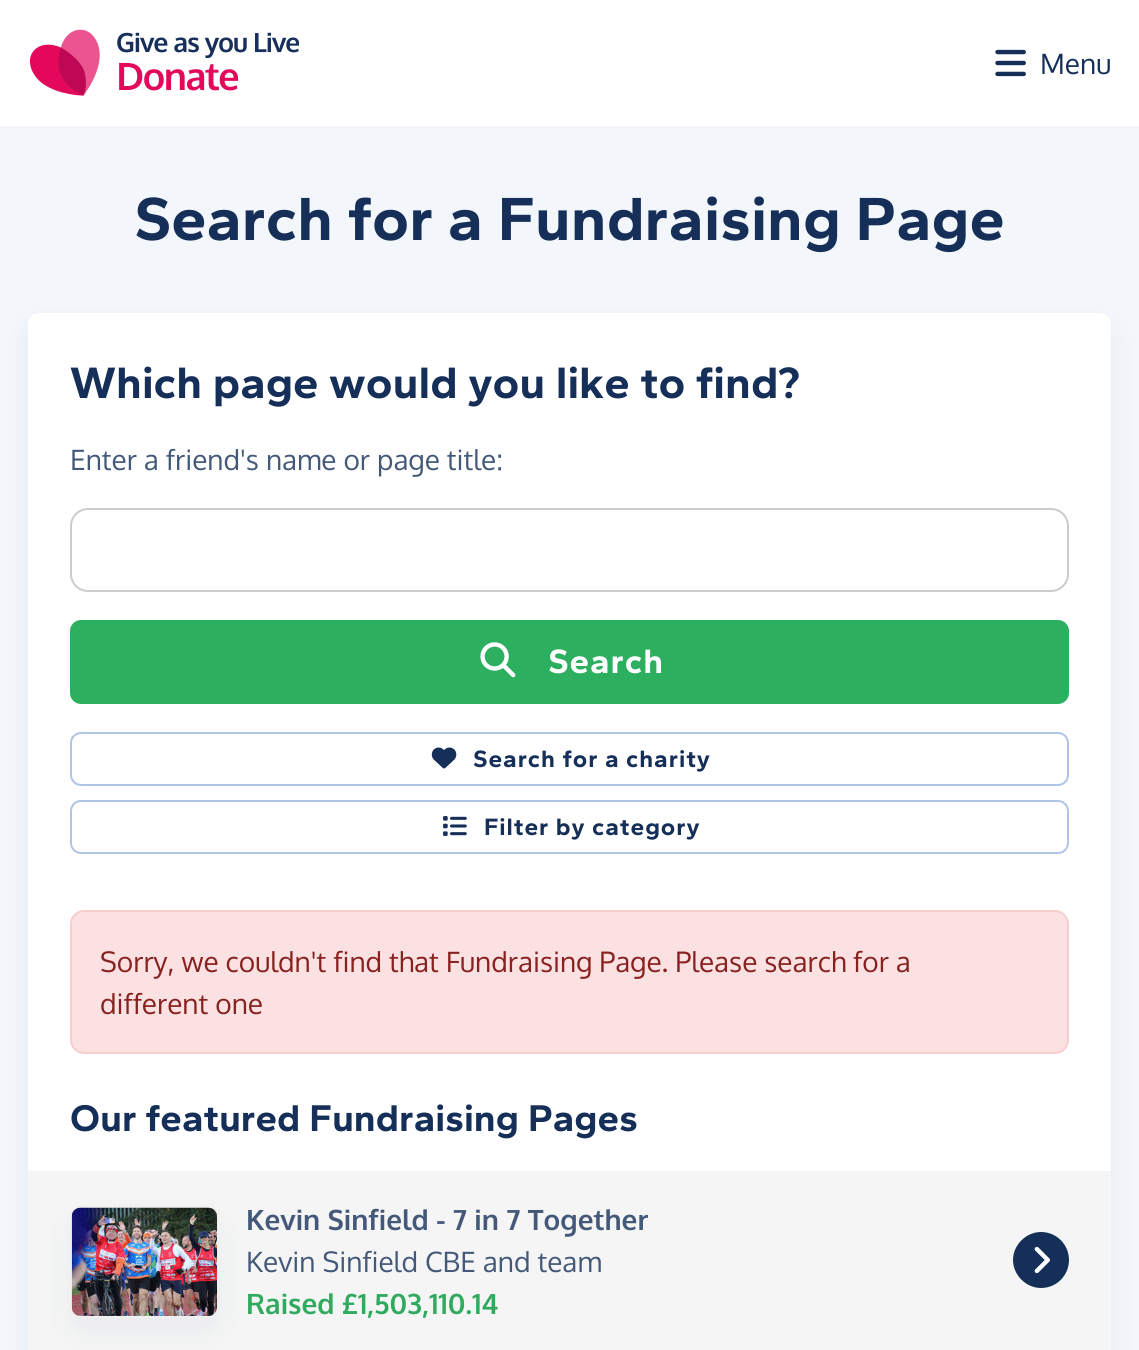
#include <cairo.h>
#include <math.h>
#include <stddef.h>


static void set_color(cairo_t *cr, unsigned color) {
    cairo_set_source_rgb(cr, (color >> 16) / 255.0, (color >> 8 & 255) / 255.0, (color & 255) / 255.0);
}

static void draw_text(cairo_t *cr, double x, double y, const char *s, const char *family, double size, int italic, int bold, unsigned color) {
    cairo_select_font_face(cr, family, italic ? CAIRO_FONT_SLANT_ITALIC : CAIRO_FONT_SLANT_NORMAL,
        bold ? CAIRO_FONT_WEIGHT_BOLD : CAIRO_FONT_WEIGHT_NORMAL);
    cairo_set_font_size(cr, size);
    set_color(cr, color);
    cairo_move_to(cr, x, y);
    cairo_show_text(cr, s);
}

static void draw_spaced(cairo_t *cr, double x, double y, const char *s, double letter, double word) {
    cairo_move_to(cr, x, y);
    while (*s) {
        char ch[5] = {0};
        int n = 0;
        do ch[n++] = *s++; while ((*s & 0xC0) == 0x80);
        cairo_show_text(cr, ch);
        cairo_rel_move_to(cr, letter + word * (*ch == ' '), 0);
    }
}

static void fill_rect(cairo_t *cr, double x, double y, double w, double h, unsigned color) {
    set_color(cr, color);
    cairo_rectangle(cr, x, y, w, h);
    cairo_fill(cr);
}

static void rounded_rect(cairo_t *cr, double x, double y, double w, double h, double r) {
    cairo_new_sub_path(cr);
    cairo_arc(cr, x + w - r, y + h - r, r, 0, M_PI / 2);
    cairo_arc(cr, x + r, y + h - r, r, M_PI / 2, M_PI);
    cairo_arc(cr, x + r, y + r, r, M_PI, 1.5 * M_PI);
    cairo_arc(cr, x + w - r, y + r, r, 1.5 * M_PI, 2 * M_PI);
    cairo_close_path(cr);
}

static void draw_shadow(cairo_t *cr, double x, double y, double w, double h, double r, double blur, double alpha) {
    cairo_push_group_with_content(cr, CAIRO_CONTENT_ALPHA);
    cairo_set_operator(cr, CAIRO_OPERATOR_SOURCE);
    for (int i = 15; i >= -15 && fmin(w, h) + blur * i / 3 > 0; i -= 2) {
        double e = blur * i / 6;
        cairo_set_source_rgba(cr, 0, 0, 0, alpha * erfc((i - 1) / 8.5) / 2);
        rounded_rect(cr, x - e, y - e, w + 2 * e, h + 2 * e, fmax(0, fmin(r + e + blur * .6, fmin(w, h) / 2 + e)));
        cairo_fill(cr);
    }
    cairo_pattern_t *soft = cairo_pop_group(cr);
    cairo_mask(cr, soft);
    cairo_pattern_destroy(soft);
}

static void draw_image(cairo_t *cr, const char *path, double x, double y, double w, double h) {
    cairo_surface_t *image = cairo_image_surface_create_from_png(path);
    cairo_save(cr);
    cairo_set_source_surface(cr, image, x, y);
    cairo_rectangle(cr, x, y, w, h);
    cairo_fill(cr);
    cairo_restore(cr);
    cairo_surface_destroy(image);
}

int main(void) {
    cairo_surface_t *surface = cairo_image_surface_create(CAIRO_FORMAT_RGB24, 1139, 1350);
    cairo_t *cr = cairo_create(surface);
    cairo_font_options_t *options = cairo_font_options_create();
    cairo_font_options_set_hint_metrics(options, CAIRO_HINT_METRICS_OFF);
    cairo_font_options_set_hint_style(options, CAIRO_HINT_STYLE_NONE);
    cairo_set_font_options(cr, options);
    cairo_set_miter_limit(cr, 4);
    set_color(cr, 0xFFFFFF);
    cairo_paint(cr);
    draw_image(cr, "assets/img1.png", 29, 29, 270, 67);
    draw_image(cr, "assets/img2.png", 995, 49, 31, 28);
    draw_text(cr, 1040, 74, "Menu", "Oxygen", 28, 0, 0, 0x152F58);
    fill_rect(cr, 0, 126, 1139, 1224, 0xF3F6FA);
    draw_text(cr, 134, 240, "Search for a Fundraising Page", "Gantari", 63, 0, 1, 0x152F58);
    set_color(cr, 0x152F58);
    draw_shadow(cr, 28, 327, 1083, 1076, 11, 14, 0.05);
    set_color(cr, 0xFFFFFF);
    rounded_rect(cr, 28, 313, 1083, 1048, 11);
    cairo_fill(cr);
    draw_text(cr, 70, 398, "Which page would you like to find?", "Gantari", 45.5, 0, 1, 0x152F58);
    draw_text(cr, 70, 470, "Enter a friend's name or page title:", "Oxygen", 28, 0, 0, 0x445979);
    rounded_rect(cr, 71, 509, 997, 82, 17);
    set_color(cr, 0xCCCCCC);
    cairo_stroke(cr);
    set_color(cr, 0x2CAF5E);
    rounded_rect(cr, 71, 621, 997, 82, 10);
    cairo_fill_preserve(cr);
    cairo_stroke(cr);
    draw_image(cr, "assets/img3.png", 480, 642, 36, 36);
    cairo_select_font_face(cr, "Gantari", CAIRO_FONT_SLANT_NORMAL, CAIRO_FONT_WEIGHT_BOLD);
    cairo_set_font_size(cr, 35);
    set_color(cr, 0xFFFFFF);
    draw_spaced(cr, 548, 673, "Search", 0.9, 0);
    rounded_rect(cr, 71, 733, 997, 52, 10);
    set_color(cr, 0xB0C4E5);
    cairo_stroke(cr);
    draw_image(cr, "assets/img4.png", 431, 747, 26, 22);
    cairo_set_font_size(cr, 24.5);
    set_color(cr, 0x152F58);
    draw_spaced(cr, 473, 767, "Search for a charity", 0.9, 0);
    rounded_rect(cr, 71, 801, 997, 52, 10);
    set_color(cr, 0xB0C4E5);
    cairo_stroke(cr);
    draw_image(cr, "assets/img5.png", 443, 816, 24, 20);
    set_color(cr, 0x152F58);
    draw_spaced(cr, 484, 835, "Filter by category", 0.9, 0);
    set_color(cr, 0xFBE1E1);
    rounded_rect(cr, 71, 911, 997, 142, 13);
    cairo_fill_preserve(cr);
    set_color(cr, 0xF8CECD);
    cairo_stroke(cr);
    draw_text(cr, 100, 972, "Sorry, we couldn't find that Fundraising Page. Please search for a", "Oxygen", 28, 0, 0, 0x882220);
    draw_text(cr, 100, 1014, "different one", "Oxygen", 28, 0, 0, 0x882220);
    draw_text(cr, 70, 1131, "Our featured Fundraising Pages", "Gantari", 38.5, 0, 1, 0x152F58);
    fill_rect(cr, 28, 1171, 1083, 179, 0xF5F5F5);
    set_color(cr, 0x152F58);
    draw_shadow(cr, 70, 1220, 149, 112, 11, 14, 0.05);
    rounded_rect(cr, 71, 1207, 147, 110, 10);
    set_color(cr, 0xF0F0F0);
    cairo_stroke(cr);
    draw_image(cr, "assets/img6.png", 71, 1207, 146, 109);
    draw_text(cr, 246, 1230, "Kevin Sinfield - 7 in 7 Together", "Oxygen", 28, 0, 1, 0x445979);
    draw_text(cr, 246, 1272, "Kevin Sinfield CBE and team", "Oxygen", 28, 0, 0, 0x445979);
    draw_text(cr, 246, 1314, "Raised £1,503,110.14", "Oxygen", 28, 0, 1, 0x31AA5F);
    set_color(cr, 0x152F58);
    cairo_new_path(cr);
    cairo_move_to(cr, 1041, 1288);
    cairo_curve_to(cr, 1057, 1288, 1069, 1275, 1069, 1260);
    cairo_curve_to(cr, 1069, 1245, 1057, 1232, 1041, 1232);
    cairo_curve_to(cr, 1026, 1232, 1013, 1245, 1013, 1260);
    cairo_curve_to(cr, 1013, 1275, 1026, 1288, 1041, 1288);
    cairo_close_path(cr);
    cairo_fill(cr);
    draw_image(cr, "assets/img7.png", 1034, 1246, 16, 28);
    cairo_surface_write_to_png(surface, "output.png");
    cairo_font_options_destroy(options);
    cairo_destroy(cr);
    cairo_surface_destroy(surface);
    return 0;
}
